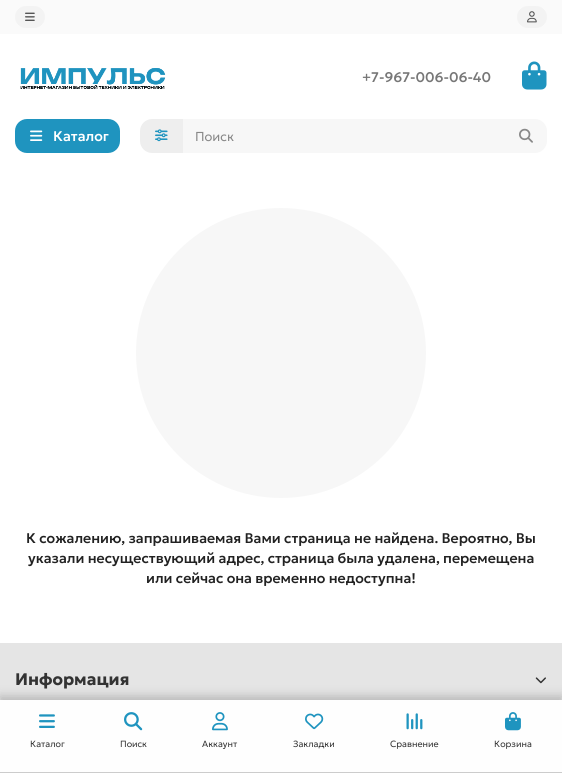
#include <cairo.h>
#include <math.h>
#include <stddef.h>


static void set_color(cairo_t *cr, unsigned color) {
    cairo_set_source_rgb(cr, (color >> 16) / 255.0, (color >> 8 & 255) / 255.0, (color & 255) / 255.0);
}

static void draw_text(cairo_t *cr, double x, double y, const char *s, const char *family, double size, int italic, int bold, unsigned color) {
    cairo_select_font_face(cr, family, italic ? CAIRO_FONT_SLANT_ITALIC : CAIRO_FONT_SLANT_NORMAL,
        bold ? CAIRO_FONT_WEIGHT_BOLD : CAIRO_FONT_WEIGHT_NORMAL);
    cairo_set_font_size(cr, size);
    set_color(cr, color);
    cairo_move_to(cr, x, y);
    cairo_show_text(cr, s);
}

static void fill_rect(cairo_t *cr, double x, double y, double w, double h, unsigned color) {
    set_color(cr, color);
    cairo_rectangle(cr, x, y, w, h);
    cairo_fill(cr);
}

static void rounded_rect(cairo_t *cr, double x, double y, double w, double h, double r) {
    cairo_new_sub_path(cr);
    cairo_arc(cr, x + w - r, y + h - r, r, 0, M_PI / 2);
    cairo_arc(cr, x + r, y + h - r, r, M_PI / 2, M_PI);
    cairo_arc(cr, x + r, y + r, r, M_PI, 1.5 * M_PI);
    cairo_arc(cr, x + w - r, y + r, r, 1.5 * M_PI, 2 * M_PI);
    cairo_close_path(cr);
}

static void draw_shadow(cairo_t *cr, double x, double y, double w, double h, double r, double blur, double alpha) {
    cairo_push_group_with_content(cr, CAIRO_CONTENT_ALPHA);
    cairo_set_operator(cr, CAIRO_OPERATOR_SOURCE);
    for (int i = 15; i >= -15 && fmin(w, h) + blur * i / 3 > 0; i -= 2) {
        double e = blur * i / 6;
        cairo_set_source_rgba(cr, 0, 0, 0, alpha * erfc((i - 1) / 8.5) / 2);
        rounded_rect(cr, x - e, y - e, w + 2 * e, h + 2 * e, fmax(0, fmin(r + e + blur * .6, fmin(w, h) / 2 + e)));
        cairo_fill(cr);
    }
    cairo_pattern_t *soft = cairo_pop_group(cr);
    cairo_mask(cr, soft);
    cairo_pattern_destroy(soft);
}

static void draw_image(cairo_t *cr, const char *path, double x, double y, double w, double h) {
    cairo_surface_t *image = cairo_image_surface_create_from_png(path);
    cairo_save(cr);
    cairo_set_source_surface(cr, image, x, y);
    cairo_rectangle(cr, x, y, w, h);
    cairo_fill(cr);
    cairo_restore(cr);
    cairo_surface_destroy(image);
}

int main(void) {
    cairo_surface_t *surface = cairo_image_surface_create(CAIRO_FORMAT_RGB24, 562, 773);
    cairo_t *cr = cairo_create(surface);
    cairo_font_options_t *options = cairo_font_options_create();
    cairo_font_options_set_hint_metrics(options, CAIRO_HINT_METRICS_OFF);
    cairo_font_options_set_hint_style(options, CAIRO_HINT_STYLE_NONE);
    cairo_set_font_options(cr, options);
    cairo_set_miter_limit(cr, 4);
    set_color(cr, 0xFFFFFF);
    cairo_paint(cr);
    fill_rect(cr, 0, 0, 562, 34, 0xFAFAFA);
    set_color(cr, 0xF3F3F3);
    rounded_rect(cr, 15, 6, 30, 22, 11);
    cairo_fill(cr);
    draw_image(cr, "assets/img1.png", 25, 12, 10, 9);
    rounded_rect(cr, 517, 6, 30, 22, 11);
    cairo_fill(cr);
    draw_image(cr, "assets/img2.png", 527, 11, 10, 12);
    draw_image(cr, "assets/img3.png", 20, 68, 146, 21);
    draw_text(cr, 362, 82, "+7-967-006-06-40", "Geologica Medium", 14, 0, 0, 0x777777);
    draw_image(cr, "assets/img4.png", 522, 61, 25, 29);
    set_color(cr, 0x1F94BF);
    rounded_rect(cr, 15, 119, 105, 34, 12);
    cairo_fill(cr);
    draw_image(cr, "assets/img5.png", 30, 130, 13, 11);
    draw_text(cr, 53, 141, "Каталог", "Geologica Medium", 14, 0, 0, 0xFFFFFF);
    set_color(cr, 0xEEEEEE);
    cairo_new_path(cr);
    cairo_move_to(cr, 152, 119);
    cairo_line_to(cr, 183, 119);
    cairo_line_to(cr, 183, 153);
    cairo_line_to(cr, 152, 153);
    cairo_curve_to(cr, 145.5, 153, 140, 147.5, 140, 141);
    cairo_line_to(cr, 140, 131);
    cairo_curve_to(cr, 140, 124.5, 145.5, 119, 152, 119);
    cairo_close_path(cr);
    cairo_fill(cr);
    draw_image(cr, "assets/img6.png", 155, 129, 13, 13);
    set_color(cr, 0xF7F7F7);
    cairo_new_path(cr);
    cairo_move_to(cr, 183, 119);
    cairo_line_to(cr, 535, 119);
    cairo_curve_to(cr, 541.5, 119, 547, 124.5, 547, 131);
    cairo_line_to(cr, 547, 141);
    cairo_curve_to(cr, 547, 147.5, 541.5, 153, 535, 153);
    cairo_line_to(cr, 183, 153);
    cairo_close_path(cr);
    cairo_fill(cr);
    draw_text(cr, 195, 141, "Поиск", "Geologica Light", 13, 0, 0, 0x888888);
    draw_image(cr, "assets/img7.png", 519, 128, 14, 15);
    set_color(cr, 0xF7F7F7);
    cairo_arc(cr, 281, 353, 145, 0, 2 * M_PI);
    cairo_fill(cr);
    draw_text(cr, 26, 543, "К сожалению, запрашиваемая Вами страница не найдена. Вероятно, Вы", "Geologica Medium", 14, 0, 0, 0x222222);
    draw_text(cr, 28, 563, "указали несуществующий адрес, страница была удалена, перемещена", "Geologica Medium", 14, 0, 0, 0x222222);
    draw_text(cr, 146, 583, "или сейчас она временно недоступна!", "Geologica Medium", 14, 0, 0, 0x222222);
    fill_rect(cr, 0, 643, 562, 57, 0xE5E5E5);
    draw_text(cr, 15, 685, "Информация", "Geologica", 16.75, 0, 1, 0x333333);
    draw_image(cr, "assets/img8.png", 535, 677, 11, 7);
    set_color(cr, 0x000000);
    draw_shadow(cr, 0, 696, 562, 73, 0, 5, 0.2);
    fill_rect(cr, 0, 700, 562, 72, 0xFEFEFE);
    fill_rect(cr, 0, 772, 562, 1, 0xCCCCCC);
    draw_image(cr, "assets/img9.png", 39, 714, 16, 14);
    draw_text(cr, 30, 747, "Каталог", "Geologica Light", 9, 0, 0, 0x333333);
    draw_image(cr, "assets/img10.png", 124, 712, 19, 19);
    draw_text(cr, 120, 747, "Поиск", "Geologica Light", 9, 0, 0, 0x333333);
    draw_image(cr, "assets/img11.png", 212, 712, 16, 19);
    draw_text(cr, 202, 747, "Аккаунт", "Geologica Light", 9, 0, 0, 0x333333);
    draw_image(cr, "assets/img12.png", 305, 713, 19, 17);
    draw_text(cr, 293, 747, "Закладки", "Geologica Light", 9, 0, 0, 0x333333);
    draw_image(cr, "assets/img13.png", 406, 713, 17, 17);
    draw_text(cr, 390, 747, "Сравнение", "Geologica Light", 9, 0, 0, 0x333333);
    draw_image(cr, "assets/img14.png", 505, 712, 16, 19);
    draw_text(cr, 494, 747, "Корзина", "Geologica Light", 9, 0, 0, 0x333333);
    cairo_surface_write_to_png(surface, "output.png");
    cairo_font_options_destroy(options);
    cairo_destroy(cr);
    cairo_surface_destroy(surface);
    return 0;
}
